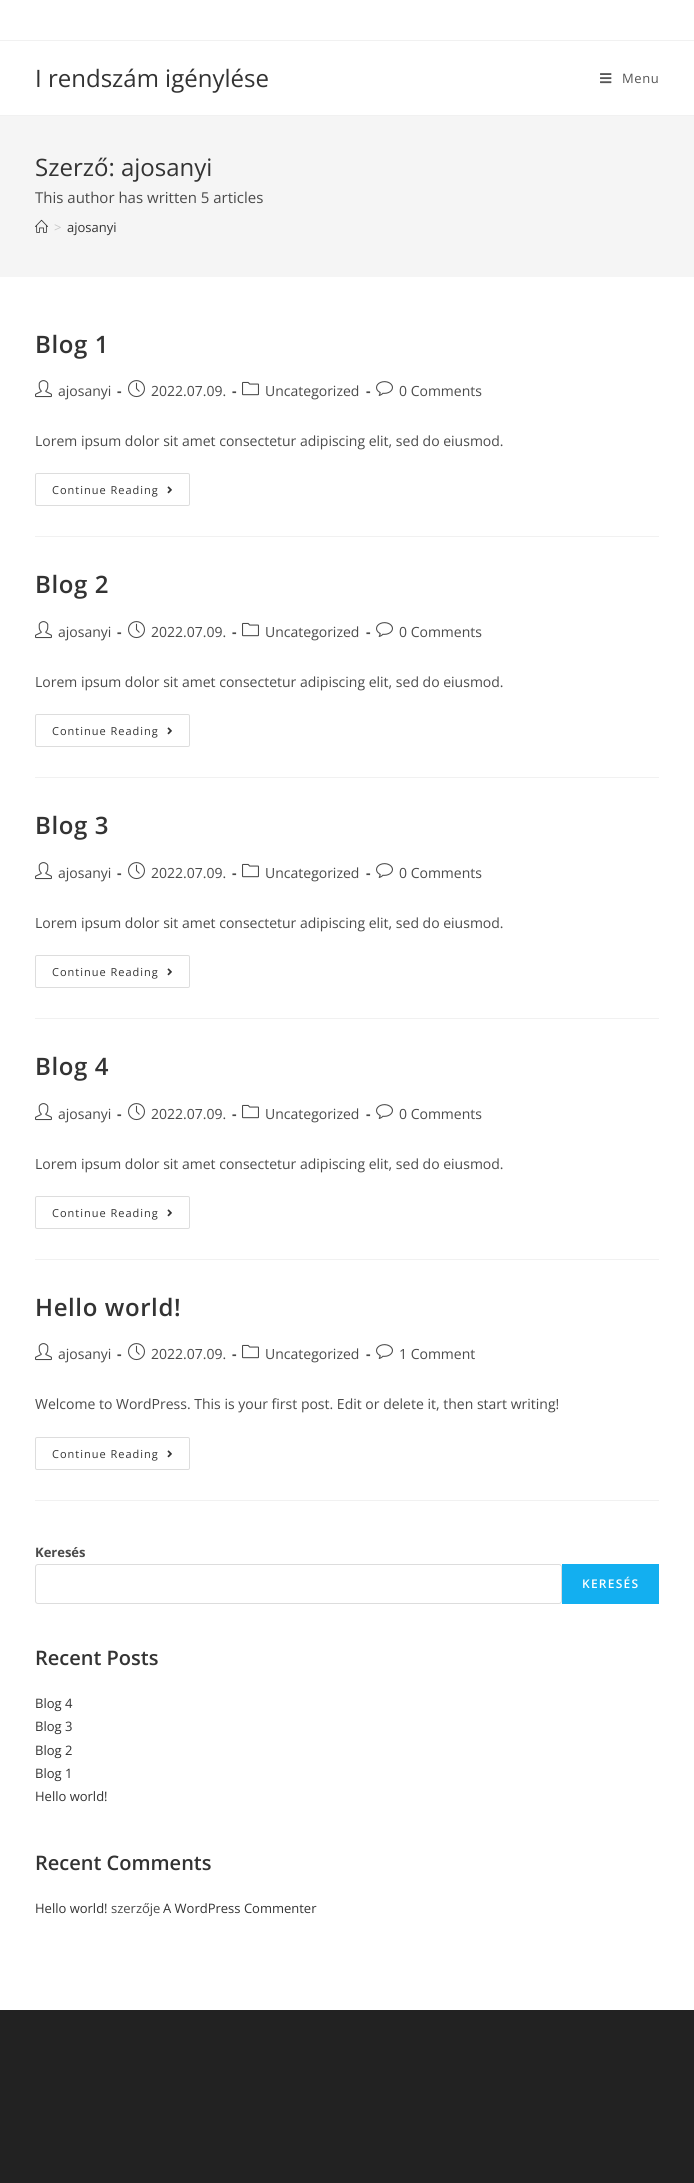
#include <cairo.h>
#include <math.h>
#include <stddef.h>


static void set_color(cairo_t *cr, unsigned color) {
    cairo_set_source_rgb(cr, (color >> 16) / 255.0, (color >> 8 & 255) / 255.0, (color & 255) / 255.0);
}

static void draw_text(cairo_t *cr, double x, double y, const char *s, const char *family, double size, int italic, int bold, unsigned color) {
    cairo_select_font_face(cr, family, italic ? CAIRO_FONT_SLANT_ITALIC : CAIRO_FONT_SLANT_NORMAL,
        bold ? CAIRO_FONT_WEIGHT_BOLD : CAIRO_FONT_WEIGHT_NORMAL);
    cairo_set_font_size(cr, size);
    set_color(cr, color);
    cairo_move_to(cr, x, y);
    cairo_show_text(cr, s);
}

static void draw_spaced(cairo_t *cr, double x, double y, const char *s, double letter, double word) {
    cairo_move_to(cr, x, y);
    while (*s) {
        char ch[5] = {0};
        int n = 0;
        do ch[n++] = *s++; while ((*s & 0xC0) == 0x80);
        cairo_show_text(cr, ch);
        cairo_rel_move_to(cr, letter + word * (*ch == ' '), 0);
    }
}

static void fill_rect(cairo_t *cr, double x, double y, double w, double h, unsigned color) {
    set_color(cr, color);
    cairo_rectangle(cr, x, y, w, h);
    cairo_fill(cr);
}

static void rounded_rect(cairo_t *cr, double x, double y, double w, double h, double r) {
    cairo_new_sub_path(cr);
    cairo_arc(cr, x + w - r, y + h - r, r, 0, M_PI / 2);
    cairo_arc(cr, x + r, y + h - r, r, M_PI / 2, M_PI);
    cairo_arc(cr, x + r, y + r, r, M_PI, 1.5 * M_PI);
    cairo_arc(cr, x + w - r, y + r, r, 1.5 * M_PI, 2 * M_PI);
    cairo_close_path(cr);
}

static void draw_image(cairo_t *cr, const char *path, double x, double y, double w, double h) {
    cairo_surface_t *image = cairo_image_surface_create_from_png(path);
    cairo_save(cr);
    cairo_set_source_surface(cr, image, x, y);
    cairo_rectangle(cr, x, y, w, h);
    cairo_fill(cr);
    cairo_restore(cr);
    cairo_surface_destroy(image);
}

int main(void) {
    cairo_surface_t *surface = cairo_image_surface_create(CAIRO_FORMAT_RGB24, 694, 2183);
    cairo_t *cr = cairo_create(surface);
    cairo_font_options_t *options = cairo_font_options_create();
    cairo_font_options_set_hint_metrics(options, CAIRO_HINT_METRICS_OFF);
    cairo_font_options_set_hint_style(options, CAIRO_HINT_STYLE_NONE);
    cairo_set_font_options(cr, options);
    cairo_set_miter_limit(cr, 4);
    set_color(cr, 0xFFFFFF);
    cairo_paint(cr);
    fill_rect(cr, 0, 40, 694, 1, 0xF1F1F1);
    fill_rect(cr, 0, 115, 694, 1, 0xF1F1F1);
    draw_text(cr, 35, 87, "I rendszám igénylése", "Open Sans", 24, 0, 0, 0x333333);
    draw_image(cr, "assets/img1.png", 600, 73, 12, 11);
    cairo_set_font_size(cr, 13);
    set_color(cr, 0x555555);
    draw_spaced(cr, 622, 83, "Menu", 0.6, 0);
    fill_rect(cr, 0, 116, 694, 161, 0xF5F5F5);
    draw_text(cr, 35, 176, "Szerző: ajosanyi", "Open Sans", 24, 0, 0, 0x333333);
    draw_text(cr, 35, 203, "This author has written 5 articles", "Open Sans", 15, 0, 0, 0x4A4A4A);
    draw_image(cr, "assets/img2.png", 35, 219, 13, 14);
    draw_text(cr, 54, 232, ">", "Open Sans", 13, 0, 0, 0xC6C6C6);
    draw_text(cr, 67, 232, "ajosanyi", "Open Sans", 13, 0, 0, 0x333333);
    fill_rect(cr, 35, 536, 624, 1, 0xF1F1F1);
    cairo_select_font_face(cr, "Open Sans SemiBold", CAIRO_FONT_SLANT_NORMAL, CAIRO_FONT_WEIGHT_NORMAL);
    cairo_set_font_size(cr, 24);
    set_color(cr, 0x333333);
    draw_spaced(cr, 35, 353, "Blog 1", 0.6, 0);
    draw_image(cr, "assets/img3.png", 35, 380, 17, 18);
    draw_text(cr, 58, 396, "ajosanyi", "Open Sans", 14, 0, 0, 0x4A4A4A);
    draw_text(cr, 117, 396, "-", "Open Sans", 14, 0, 1, 0x4A4A4A);
    draw_image(cr, "assets/img4.png", 128, 380, 17, 18);
    draw_text(cr, 151, 396, "2022.07.09.", "Open Sans", 14, 0, 0, 0x4A4A4A);
    draw_text(cr, 232, 396, "-", "Open Sans", 14, 0, 1, 0x4A4A4A);
    draw_image(cr, "assets/img5.png", 242, 381, 17, 15);
    draw_text(cr, 265, 396, "Uncategorized", "Open Sans", 14, 0, 0, 0x4A4A4A);
    draw_text(cr, 366, 396, "-", "Open Sans", 14, 0, 1, 0x4A4A4A);
    draw_image(cr, "assets/img6.png", 376, 381, 17, 15);
    draw_text(cr, 399, 396, "0 Comments", "Open Sans", 14, 0, 0, 0x4A4A4A);
    draw_text(cr, 35, 446, "Lorem ipsum dolor sit amet consectetur adipiscing elit, sed do eiusmod.", "Open Sans", 14, 0, 0, 0x4A4A4A);
    rounded_rect(cr, 35.5, 473.5, 154, 32, 1.5);
    set_color(cr, 0xDDDDDD);
    cairo_set_line_width(cr, 1);
    cairo_stroke(cr);
    cairo_set_font_size(cr, 11);
    set_color(cr, 0x333333);
    draw_spaced(cr, 52, 494, "Continue Reading", 1, 0);
    draw_image(cr, "assets/img7.png", 167, 486, 5, 8);
    fill_rect(cr, 35, 777, 624, 1, 0xF1F1F1);
    cairo_select_font_face(cr, "Open Sans SemiBold", CAIRO_FONT_SLANT_NORMAL, CAIRO_FONT_WEIGHT_NORMAL);
    cairo_set_font_size(cr, 24);
    set_color(cr, 0x333333);
    draw_spaced(cr, 35, 593, "Blog 2", 0.6, 0);
    draw_image(cr, "assets/img3.png", 35, 621, 17, 18);
    draw_text(cr, 58, 637, "ajosanyi", "Open Sans", 14, 0, 0, 0x4A4A4A);
    draw_text(cr, 117, 637, "-", "Open Sans", 14, 0, 1, 0x4A4A4A);
    draw_image(cr, "assets/img4.png", 128, 621, 17, 18);
    draw_text(cr, 151, 637, "2022.07.09.", "Open Sans", 14, 0, 0, 0x4A4A4A);
    draw_text(cr, 232, 637, "-", "Open Sans", 14, 0, 1, 0x4A4A4A);
    draw_image(cr, "assets/img5.png", 242, 622, 17, 15);
    draw_text(cr, 265, 637, "Uncategorized", "Open Sans", 14, 0, 0, 0x4A4A4A);
    draw_text(cr, 366, 637, "-", "Open Sans", 14, 0, 1, 0x4A4A4A);
    draw_image(cr, "assets/img6.png", 376, 622, 17, 15);
    draw_text(cr, 399, 637, "0 Comments", "Open Sans", 14, 0, 0, 0x4A4A4A);
    draw_text(cr, 35, 687, "Lorem ipsum dolor sit amet consectetur adipiscing elit, sed do eiusmod.", "Open Sans", 14, 0, 0, 0x4A4A4A);
    rounded_rect(cr, 35.5, 714.5, 154, 32, 1.5);
    set_color(cr, 0xDDDDDD);
    cairo_stroke(cr);
    cairo_set_font_size(cr, 11);
    set_color(cr, 0x333333);
    draw_spaced(cr, 52, 735, "Continue Reading", 1, 0);
    draw_image(cr, "assets/img7.png", 167, 727, 5, 8);
    fill_rect(cr, 35, 1018, 624, 1, 0xF1F1F1);
    cairo_select_font_face(cr, "Open Sans SemiBold", CAIRO_FONT_SLANT_NORMAL, CAIRO_FONT_WEIGHT_NORMAL);
    cairo_set_font_size(cr, 24);
    set_color(cr, 0x333333);
    draw_spaced(cr, 35, 834, "Blog 3", 0.6, 0);
    draw_image(cr, "assets/img3.png", 35, 862, 17, 18);
    draw_text(cr, 58, 878, "ajosanyi", "Open Sans", 14, 0, 0, 0x4A4A4A);
    draw_text(cr, 117, 878, "-", "Open Sans", 14, 0, 1, 0x4A4A4A);
    draw_image(cr, "assets/img4.png", 128, 862, 17, 18);
    draw_text(cr, 151, 878, "2022.07.09.", "Open Sans", 14, 0, 0, 0x4A4A4A);
    draw_text(cr, 232, 878, "-", "Open Sans", 14, 0, 1, 0x4A4A4A);
    draw_image(cr, "assets/img5.png", 242, 863, 17, 15);
    draw_text(cr, 265, 878, "Uncategorized", "Open Sans", 14, 0, 0, 0x4A4A4A);
    draw_text(cr, 366, 878, "-", "Open Sans", 14, 0, 1, 0x4A4A4A);
    draw_image(cr, "assets/img6.png", 376, 863, 17, 15);
    draw_text(cr, 399, 878, "0 Comments", "Open Sans", 14, 0, 0, 0x4A4A4A);
    draw_text(cr, 35, 928, "Lorem ipsum dolor sit amet consectetur adipiscing elit, sed do eiusmod.", "Open Sans", 14, 0, 0, 0x4A4A4A);
    rounded_rect(cr, 35.5, 955.5, 154, 32, 1.5);
    set_color(cr, 0xDDDDDD);
    cairo_stroke(cr);
    cairo_set_font_size(cr, 11);
    set_color(cr, 0x333333);
    draw_spaced(cr, 52, 976, "Continue Reading", 1, 0);
    draw_image(cr, "assets/img7.png", 167, 968, 5, 8);
    fill_rect(cr, 35, 1259, 624, 1, 0xF1F1F1);
    cairo_select_font_face(cr, "Open Sans SemiBold", CAIRO_FONT_SLANT_NORMAL, CAIRO_FONT_WEIGHT_NORMAL);
    cairo_set_font_size(cr, 24);
    set_color(cr, 0x333333);
    draw_spaced(cr, 35, 1075, "Blog 4", 0.6, 0);
    draw_image(cr, "assets/img3.png", 35, 1103, 17, 18);
    draw_text(cr, 58, 1119, "ajosanyi", "Open Sans", 14, 0, 0, 0x4A4A4A);
    draw_text(cr, 117, 1119, "-", "Open Sans", 14, 0, 1, 0x4A4A4A);
    draw_image(cr, "assets/img4.png", 128, 1103, 17, 18);
    draw_text(cr, 151, 1119, "2022.07.09.", "Open Sans", 14, 0, 0, 0x4A4A4A);
    draw_text(cr, 232, 1119, "-", "Open Sans", 14, 0, 1, 0x4A4A4A);
    draw_image(cr, "assets/img5.png", 242, 1104, 17, 15);
    draw_text(cr, 265, 1119, "Uncategorized", "Open Sans", 14, 0, 0, 0x4A4A4A);
    draw_text(cr, 366, 1119, "-", "Open Sans", 14, 0, 1, 0x4A4A4A);
    draw_image(cr, "assets/img6.png", 376, 1104, 17, 15);
    draw_text(cr, 399, 1119, "0 Comments", "Open Sans", 14, 0, 0, 0x4A4A4A);
    draw_text(cr, 35, 1169, "Lorem ipsum dolor sit amet consectetur adipiscing elit, sed do eiusmod.", "Open Sans", 14, 0, 0, 0x4A4A4A);
    rounded_rect(cr, 35.5, 1196.5, 154, 32, 1.5);
    set_color(cr, 0xDDDDDD);
    cairo_stroke(cr);
    cairo_set_font_size(cr, 11);
    set_color(cr, 0x333333);
    draw_spaced(cr, 52, 1217, "Continue Reading", 1, 0);
    draw_image(cr, "assets/img7.png", 167, 1209, 5, 8);
    fill_rect(cr, 35, 1500, 624, 1, 0xF1F1F1);
    cairo_select_font_face(cr, "Open Sans SemiBold", CAIRO_FONT_SLANT_NORMAL, CAIRO_FONT_WEIGHT_NORMAL);
    cairo_set_font_size(cr, 24);
    set_color(cr, 0x333333);
    draw_spaced(cr, 35, 1316, "Hello world!", 0.6, 0);
    draw_image(cr, "assets/img3.png", 35, 1343, 17, 18);
    draw_text(cr, 58, 1359, "ajosanyi", "Open Sans", 14, 0, 0, 0x4A4A4A);
    draw_text(cr, 117, 1359, "-", "Open Sans", 14, 0, 1, 0x4A4A4A);
    draw_image(cr, "assets/img4.png", 128, 1343, 17, 18);
    draw_text(cr, 151, 1359, "2022.07.09.", "Open Sans", 14, 0, 0, 0x4A4A4A);
    draw_text(cr, 232, 1359, "-", "Open Sans", 14, 0, 1, 0x4A4A4A);
    draw_image(cr, "assets/img5.png", 242, 1344, 17, 15);
    draw_text(cr, 265, 1359, "Uncategorized", "Open Sans", 14, 0, 0, 0x4A4A4A);
    draw_text(cr, 366, 1359, "-", "Open Sans", 14, 0, 1, 0x4A4A4A);
    draw_image(cr, "assets/img6.png", 376, 1344, 17, 15);
    draw_text(cr, 399, 1359, "1 Comment", "Open Sans", 14, 0, 0, 0x4A4A4A);
    draw_text(cr, 35, 1409, "Welcome to WordPress. This is your first post. Edit or delete it, then start writing!", "Open Sans", 14, 0, 0, 0x4A4A4A);
    rounded_rect(cr, 35.5, 1437.5, 154, 32, 1.5);
    set_color(cr, 0xDDDDDD);
    cairo_stroke(cr);
    cairo_set_font_size(cr, 11);
    set_color(cr, 0x333333);
    draw_spaced(cr, 52, 1458, "Continue Reading", 1, 0);
    draw_image(cr, "assets/img7.png", 167, 1450, 5, 8);
    draw_text(cr, 35, 1557, "Keresés", "Open Sans", 13, 0, 1, 0x4A4A4A);
    rounded_rect(cr, 35.5, 1564.5, 526, 39, 2.5);
    set_color(cr, 0xDDDDDD);
    cairo_stroke(cr);
    fill_rect(cr, 562, 1564, 97, 40, 0x13AFF0);
    cairo_select_font_face(cr, "Open Sans SemiBold", CAIRO_FONT_SLANT_NORMAL, CAIRO_FONT_WEIGHT_NORMAL);
    cairo_set_font_size(cr, 12);
    set_color(cr, 0xFFFFFF);
    draw_spaced(cr, 582, 1588, "KERESÉS", 1.25, 0);
    draw_text(cr, 35, 1665, "Recent Posts", "Open Sans SemiBold", 20, 0, 0, 0x333333);
    draw_text(cr, 35, 1708, "Blog 4", "Open Sans", 13, 0, 0, 0x333333);
    draw_text(cr, 35, 1731, "Blog 3", "Open Sans", 13, 0, 0, 0x333333);
    draw_text(cr, 35, 1755, "Blog 2", "Open Sans", 13, 0, 0, 0x333333);
    draw_text(cr, 35, 1778, "Blog 1", "Open Sans", 13, 0, 0, 0x333333);
    draw_text(cr, 35, 1801, "Hello world!", "Open Sans", 13, 0, 0, 0x333333);
    draw_text(cr, 35, 1870, "Recent Comments", "Open Sans SemiBold", 20, 0, 0, 0x333333);
    draw_text(cr, 35, 1913, "Hello world!", "Open Sans", 13, 0, 0, 0x333333);
    draw_text(cr, 111, 1913, "szerzője", "Open Sans", 13, 0, 0, 0x4A4A4A);
    draw_text(cr, 163, 1913, "A WordPress Commenter", "Open Sans", 13, 0, 0, 0x333333);
    fill_rect(cr, 0, 2010, 694, 173, 0x222222);
    cairo_surface_write_to_png(surface, "output.png");
    cairo_font_options_destroy(options);
    cairo_destroy(cr);
    cairo_surface_destroy(surface);
    return 0;
}
